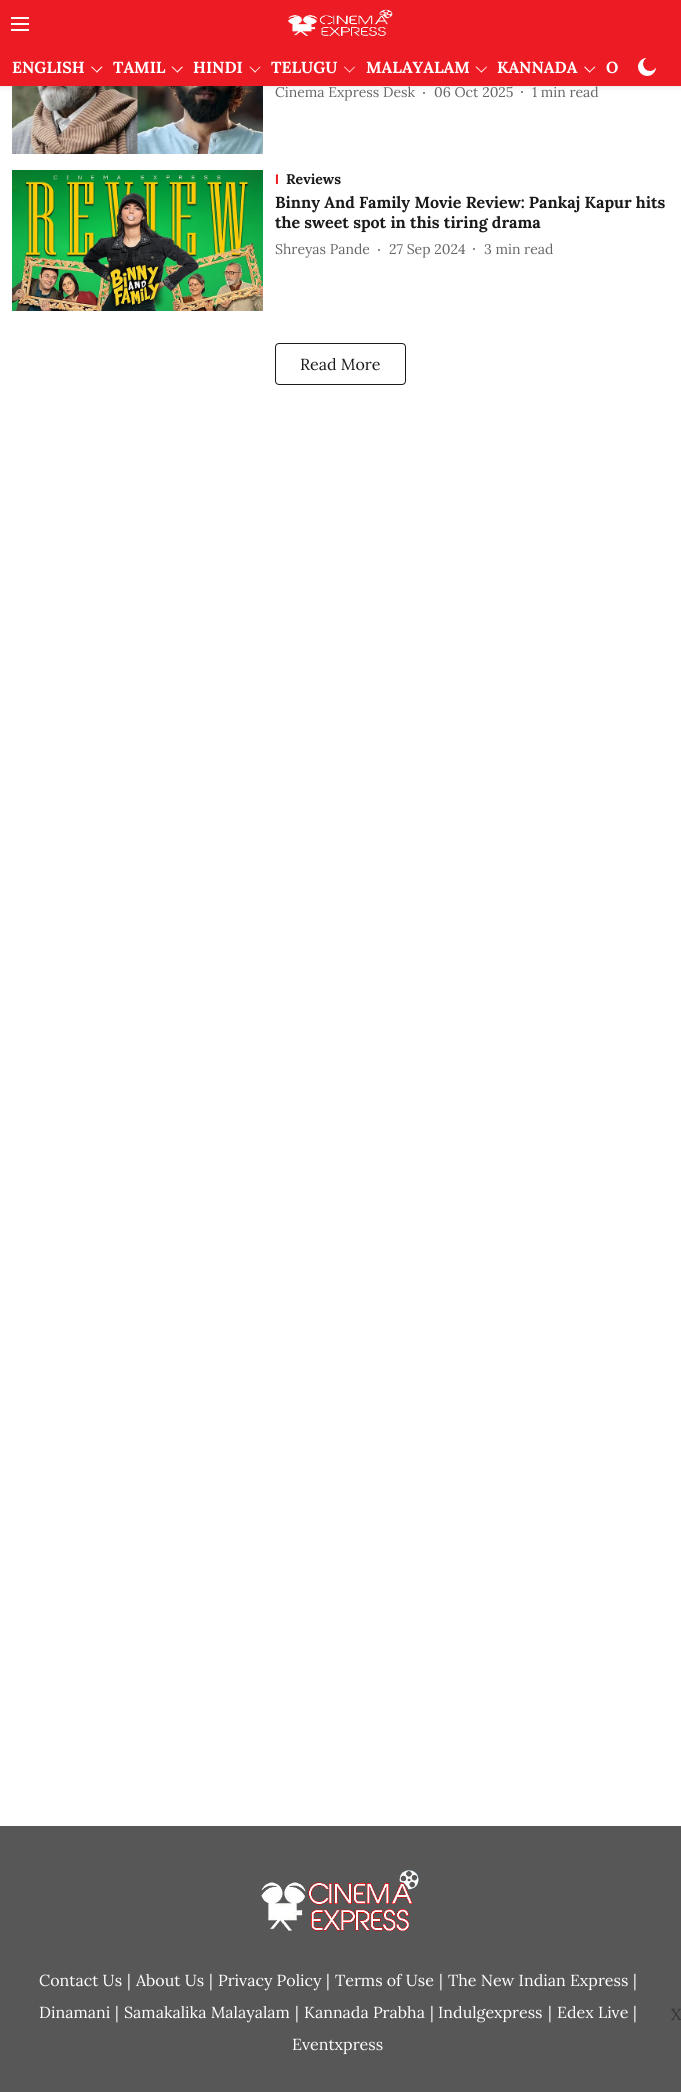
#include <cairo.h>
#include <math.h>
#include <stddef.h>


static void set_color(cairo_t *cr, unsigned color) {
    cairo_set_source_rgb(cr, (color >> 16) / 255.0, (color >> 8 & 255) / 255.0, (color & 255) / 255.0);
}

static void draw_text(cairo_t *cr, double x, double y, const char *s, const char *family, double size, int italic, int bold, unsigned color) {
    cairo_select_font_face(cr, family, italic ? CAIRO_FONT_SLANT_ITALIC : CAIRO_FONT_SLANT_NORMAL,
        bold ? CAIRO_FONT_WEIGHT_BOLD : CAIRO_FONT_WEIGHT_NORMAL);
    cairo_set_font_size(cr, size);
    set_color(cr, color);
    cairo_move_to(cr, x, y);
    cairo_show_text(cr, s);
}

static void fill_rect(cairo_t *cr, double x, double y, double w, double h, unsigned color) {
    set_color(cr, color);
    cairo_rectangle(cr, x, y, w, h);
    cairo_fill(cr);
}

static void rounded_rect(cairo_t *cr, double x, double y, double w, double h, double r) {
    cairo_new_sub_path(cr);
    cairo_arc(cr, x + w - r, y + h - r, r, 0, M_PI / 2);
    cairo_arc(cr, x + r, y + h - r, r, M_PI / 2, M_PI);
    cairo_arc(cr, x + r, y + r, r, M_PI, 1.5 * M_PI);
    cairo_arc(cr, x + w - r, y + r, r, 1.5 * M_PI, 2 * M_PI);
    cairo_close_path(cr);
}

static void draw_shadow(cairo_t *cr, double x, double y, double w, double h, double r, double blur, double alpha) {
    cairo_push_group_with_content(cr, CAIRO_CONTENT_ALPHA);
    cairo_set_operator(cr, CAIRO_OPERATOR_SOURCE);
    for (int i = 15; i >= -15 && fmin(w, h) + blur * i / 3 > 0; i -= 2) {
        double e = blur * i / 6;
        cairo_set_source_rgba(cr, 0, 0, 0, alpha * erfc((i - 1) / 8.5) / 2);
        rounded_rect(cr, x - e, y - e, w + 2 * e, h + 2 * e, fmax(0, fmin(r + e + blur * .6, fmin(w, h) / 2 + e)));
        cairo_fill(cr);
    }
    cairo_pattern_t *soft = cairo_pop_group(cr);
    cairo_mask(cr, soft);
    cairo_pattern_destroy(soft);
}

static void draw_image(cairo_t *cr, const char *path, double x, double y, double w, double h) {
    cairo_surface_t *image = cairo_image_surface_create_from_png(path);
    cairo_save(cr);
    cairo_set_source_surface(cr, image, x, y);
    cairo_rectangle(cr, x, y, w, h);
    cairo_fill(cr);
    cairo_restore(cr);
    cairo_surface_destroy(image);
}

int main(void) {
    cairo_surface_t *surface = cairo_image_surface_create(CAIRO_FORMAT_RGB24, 681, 2092);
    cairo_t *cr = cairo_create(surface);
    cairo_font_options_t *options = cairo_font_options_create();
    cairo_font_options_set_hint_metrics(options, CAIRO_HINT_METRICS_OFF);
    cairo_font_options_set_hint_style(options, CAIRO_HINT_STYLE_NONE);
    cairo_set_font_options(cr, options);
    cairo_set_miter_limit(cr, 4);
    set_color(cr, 0xFFFFFF);
    cairo_paint(cr);
    draw_image(cr, "assets/img4.png", 12, 86, 251, 68);
    set_color(cr, 0x666666);
    cairo_arc(cr, 424, 93, 1, 0, 2 * M_PI);
    cairo_fill(cr);
    cairo_arc(cr, 522, 92, 1, 0, 2 * M_PI);
    cairo_fill(cr);
    set_color(cr, 0x000000);
    draw_shadow(cr, 0, 1, 681, 86, 0, 3, 0.1);
    fill_rect(cr, 0, 0, 681, 86, 0xED1C24);
    draw_image(cr, "assets/img1.png", 11, 17, 18, 14);
    draw_image(cr, "assets/img2.png", 287, 9, 106, 27);
    draw_text(cr, 12, 73, "ENGLISH", "Lora", 16, 0, 1, 0xFFFFFF);
    cairo_new_path(cr);
    cairo_move_to(cr, 101.5, 66.5);
    cairo_line_to(cr, 102.5, 67);
    cairo_line_to(cr, 97, 72.5);
    cairo_line_to(cr, 96, 72);
    cairo_close_path(cr);
    cairo_fill(cr);
    cairo_new_path(cr);
    cairo_move_to(cr, 92, 66.5);
    cairo_line_to(cr, 97.5, 72);
    cairo_line_to(cr, 97, 72.5);
    cairo_line_to(cr, 91, 67);
    cairo_close_path(cr);
    cairo_fill(cr);
    draw_text(cr, 113, 73, "TAMIL", "Lora", 16, 0, 1, 0xFFFFFF);
    cairo_new_path(cr);
    cairo_move_to(cr, 182, 66.5);
    cairo_line_to(cr, 183, 67);
    cairo_line_to(cr, 177.5, 72.5);
    cairo_line_to(cr, 176.5, 72);
    cairo_close_path(cr);
    cairo_fill(cr);
    cairo_new_path(cr);
    cairo_move_to(cr, 172.5, 66.5);
    cairo_line_to(cr, 178, 72);
    cairo_line_to(cr, 177.5, 72.5);
    cairo_line_to(cr, 171.5, 67);
    cairo_close_path(cr);
    cairo_fill(cr);
    draw_text(cr, 193, 73, "HINDI", "Lora", 16, 0, 1, 0xFFFFFF);
    cairo_new_path(cr);
    cairo_move_to(cr, 260, 66.5);
    cairo_line_to(cr, 260.5, 67);
    cairo_line_to(cr, 255, 72.5);
    cairo_line_to(cr, 254.5, 72);
    cairo_close_path(cr);
    cairo_fill(cr);
    cairo_new_path(cr);
    cairo_move_to(cr, 250, 66.5);
    cairo_line_to(cr, 256, 72);
    cairo_line_to(cr, 255, 72.5);
    cairo_line_to(cr, 249.5, 67);
    cairo_close_path(cr);
    cairo_fill(cr);
    draw_text(cr, 271, 73, "TELUGU", "Lora", 16, 0, 1, 0xFFFFFF);
    cairo_new_path(cr);
    cairo_move_to(cr, 354.5, 66.5);
    cairo_line_to(cr, 355, 67);
    cairo_line_to(cr, 349.5, 72.5);
    cairo_line_to(cr, 349, 72);
    cairo_close_path(cr);
    cairo_fill(cr);
    cairo_new_path(cr);
    cairo_move_to(cr, 344.5, 66.5);
    cairo_line_to(cr, 350, 72);
    cairo_line_to(cr, 349.5, 72.5);
    cairo_line_to(cr, 344, 67);
    cairo_close_path(cr);
    cairo_fill(cr);
    draw_text(cr, 366, 73, "MALAYALAM", "Lora", 16, 0, 1, 0xFFFFFF);
    cairo_new_path(cr);
    cairo_move_to(cr, 486.5, 66.5);
    cairo_line_to(cr, 487, 67);
    cairo_line_to(cr, 481.5, 72.5);
    cairo_line_to(cr, 480.5, 72);
    cairo_close_path(cr);
    cairo_fill(cr);
    cairo_new_path(cr);
    cairo_move_to(cr, 476.5, 66.5);
    cairo_line_to(cr, 482, 72);
    cairo_line_to(cr, 481.5, 72.5);
    cairo_line_to(cr, 475.5, 67);
    cairo_close_path(cr);
    cairo_fill(cr);
    draw_text(cr, 497, 73, "KANNADA", "Lora", 16, 0, 1, 0xFFFFFF);
    cairo_new_path(cr);
    cairo_move_to(cr, 594.5, 66.5);
    cairo_line_to(cr, 595.5, 67);
    cairo_line_to(cr, 589.5, 72.5);
    cairo_line_to(cr, 589, 72);
    cairo_close_path(cr);
    cairo_fill(cr);
    cairo_new_path(cr);
    cairo_move_to(cr, 585, 66.5);
    cairo_line_to(cr, 590.5, 72);
    cairo_line_to(cr, 589.5, 72.5);
    cairo_line_to(cr, 584, 67);
    cairo_close_path(cr);
    cairo_fill(cr);
    draw_text(cr, 606, 73, "O", "Lora", 16, 0, 1, 0xFFFFFF);
    draw_image(cr, "assets/img3.png", 638, 58, 18, 18);
    draw_text(cr, 275, 97, "Cinema Express Desk", "Lora", 14, 0, 0, 0x666666);
    draw_text(cr, 434, 97, "06 Oct 2025", "Lora", 14, 0, 0, 0x666666);
    draw_text(cr, 532, 97, "1 min read", "Lora", 14, 0, 0, 0x666666);
    draw_image(cr, "assets/img5.png", 12, 170, 251, 141);
    draw_text(cr, 275, 184, "I", "Liberation Sans", 14, 0, 1, 0xED1C24);
    draw_text(cr, 286, 184, "Reviews", "Lora", 14, 0, 1, 0x1A1A1A);
    draw_text(cr, 275, 208, "Binny And Family Movie Review: Pankaj Kapur hits", "Lora", 16, 0, 1, 0x1A1A1A);
    draw_text(cr, 275, 228, "the sweet spot in this tiring drama", "Lora", 16, 0, 1, 0x1A1A1A);
    draw_text(cr, 275, 254, "Shreyas Pande", "Lora", 14, 0, 0, 0x666666);
    cairo_new_path(cr);
    cairo_arc(cr, 379, 250, 1, 0, 2 * M_PI);
    cairo_fill(cr);
    draw_text(cr, 389, 254, "27 Sep 2024", "Lora", 14, 0, 0, 0x666666);
    cairo_new_path(cr);
    cairo_arc(cr, 474, 249, 1, 0, 2 * M_PI);
    cairo_fill(cr);
    draw_text(cr, 484, 254, "3 min read", "Lora", 14, 0, 0, 0x666666);
    rounded_rect(cr, 275.5, 343.5, 130, 41, 3.5);
    set_color(cr, 0x1A1A1A);
    cairo_set_line_width(cr, 1);
    cairo_stroke(cr);
    draw_text(cr, 300, 370, "Read More", "Lora", 16, 0, 0, 0x1A1A1A);
    fill_rect(cr, 0, 1826, 681, 266, 0x575757);
    draw_image(cr, "assets/img6.png", 261, 1870, 158, 62);
    draw_text(cr, 39, 1986, "Contact Us", "Lora", 16, 0, 0, 0xFFFFFF);
    draw_text(cr, 127, 1986, "|", "Lora", 16, 0, 0, 0xFFFFFF);
    draw_text(cr, 136, 1986, "About Us", "Lora", 16, 0, 0, 0xFFFFFF);
    draw_text(cr, 209, 1986, "|", "Lora", 16, 0, 0, 0xFFFFFF);
    draw_text(cr, 218, 1986, "Privacy Policy", "Lora", 16, 0, 0, 0xFFFFFF);
    draw_text(cr, 326, 1986, "|", "Lora", 16, 0, 0, 0xFFFFFF);
    draw_text(cr, 335, 1986, "Terms of Use", "Lora", 16, 0, 0, 0xFFFFFF);
    draw_text(cr, 439, 1986, "|", "Lora", 16, 0, 0, 0xFFFFFF);
    draw_text(cr, 448, 1986, "The New Indian Express", "Lora", 16, 0, 0, 0xFFFFFF);
    draw_text(cr, 633, 1986, "|", "Lora", 16, 0, 0, 0xFFFFFF);
    draw_text(cr, 39, 2018, "Dinamani", "Lora", 16, 0, 0, 0xFFFFFF);
    draw_text(cr, 115, 2018, "|", "Lora", 16, 0, 0, 0xFFFFFF);
    draw_text(cr, 124, 2018, "Samakalika Malayalam", "Lora", 16, 0, 0, 0xFFFFFF);
    draw_text(cr, 295, 2018, "|", "Lora", 16, 0, 0, 0xFFFFFF);
    draw_text(cr, 304, 2018, "Kannada Prabha", "Lora", 16, 0, 0, 0xFFFFFF);
    draw_text(cr, 430, 2018, "|", "Lora", 16, 0, 0, 0xFFFFFF);
    draw_text(cr, 438, 2018, "Indulgexpress", "Lora", 16, 0, 0, 0xFFFFFF);
    draw_text(cr, 548, 2018, "|", "Lora", 16, 0, 0, 0xFFFFFF);
    draw_text(cr, 557, 2018, "Edex Live", "Lora", 16, 0, 0, 0xFFFFFF);
    draw_text(cr, 633, 2018, "|", "Lora", 16, 0, 0, 0xFFFFFF);
    draw_text(cr, 292, 2050, "Eventxpress", "Lora", 16, 0, 0, 0xFFFFFF);
    draw_text(cr, 671, 2020, "X", "Lora", 16, 0, 0, 0x333333);
    cairo_surface_write_to_png(surface, "output.png");
    cairo_font_options_destroy(options);
    cairo_destroy(cr);
    cairo_surface_destroy(surface);
    return 0;
}
